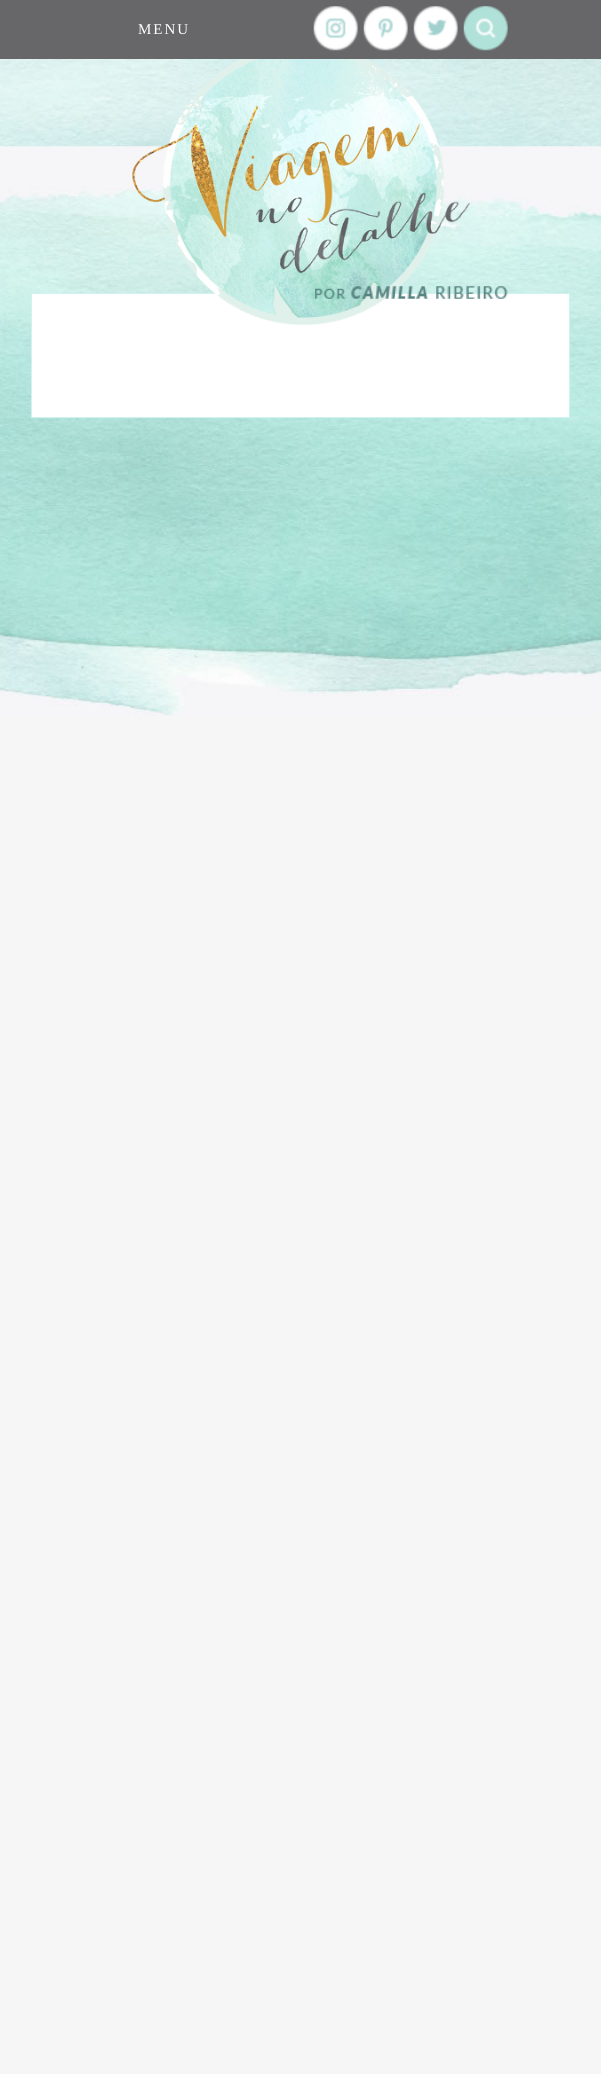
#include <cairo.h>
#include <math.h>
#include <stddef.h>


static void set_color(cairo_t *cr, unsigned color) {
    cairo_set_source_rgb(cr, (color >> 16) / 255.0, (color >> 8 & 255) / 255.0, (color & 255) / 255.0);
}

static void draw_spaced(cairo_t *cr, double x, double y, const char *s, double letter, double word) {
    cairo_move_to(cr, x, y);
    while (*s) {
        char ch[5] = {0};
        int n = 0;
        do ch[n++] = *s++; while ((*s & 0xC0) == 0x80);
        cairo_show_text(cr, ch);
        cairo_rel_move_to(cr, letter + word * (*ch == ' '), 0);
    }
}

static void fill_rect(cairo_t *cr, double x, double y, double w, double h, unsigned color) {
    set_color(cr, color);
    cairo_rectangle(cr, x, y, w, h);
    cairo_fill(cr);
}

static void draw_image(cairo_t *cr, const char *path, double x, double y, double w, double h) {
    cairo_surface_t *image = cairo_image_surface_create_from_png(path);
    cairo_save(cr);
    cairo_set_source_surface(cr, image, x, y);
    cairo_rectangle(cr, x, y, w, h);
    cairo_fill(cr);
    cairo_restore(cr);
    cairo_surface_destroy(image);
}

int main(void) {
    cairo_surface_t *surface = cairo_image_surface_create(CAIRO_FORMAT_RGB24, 601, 2074);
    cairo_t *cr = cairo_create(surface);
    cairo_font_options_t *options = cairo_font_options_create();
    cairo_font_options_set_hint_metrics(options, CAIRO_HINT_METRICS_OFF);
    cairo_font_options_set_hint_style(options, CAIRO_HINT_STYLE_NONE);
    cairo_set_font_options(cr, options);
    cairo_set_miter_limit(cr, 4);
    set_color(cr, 0xF6F6F7);
    cairo_paint(cr);
    draw_image(cr, "assets/img1.png", 0, 59, 601, 657);
    fill_rect(cr, 0, 0, 601, 59, 0x676668);
    cairo_select_font_face(cr, "Liberation Serif", CAIRO_FONT_SLANT_NORMAL, CAIRO_FONT_WEIGHT_NORMAL);
    cairo_set_font_size(cr, 15);
    set_color(cr, 0xFFFFFF);
    draw_spaced(cr, 138, 34, "MENU", 2, 0);
    draw_image(cr, "assets/img2.png", 313, 6, 45, 45);
    draw_image(cr, "assets/img3.png", 363, 6, 45, 45);
    draw_image(cr, "assets/img4.png", 413, 6, 45, 45);
    draw_image(cr, "assets/img5.png", 463, 6, 45, 45);
    cairo_rectangle(cr, 31.5, 293.5, 538, 124);
    cairo_fill_preserve(cr);
    set_color(cr, 0xD0F2F1);
    cairo_set_line_width(cr, 1);
    cairo_stroke(cr);
    draw_image(cr, "assets/img6.png", 132, 59, 338, 266);
    draw_image(cr, "assets/img7.png", 315, 286, 193, 13);
    cairo_surface_write_to_png(surface, "output.png");
    cairo_font_options_destroy(options);
    cairo_destroy(cr);
    cairo_surface_destroy(surface);
    return 0;
}
